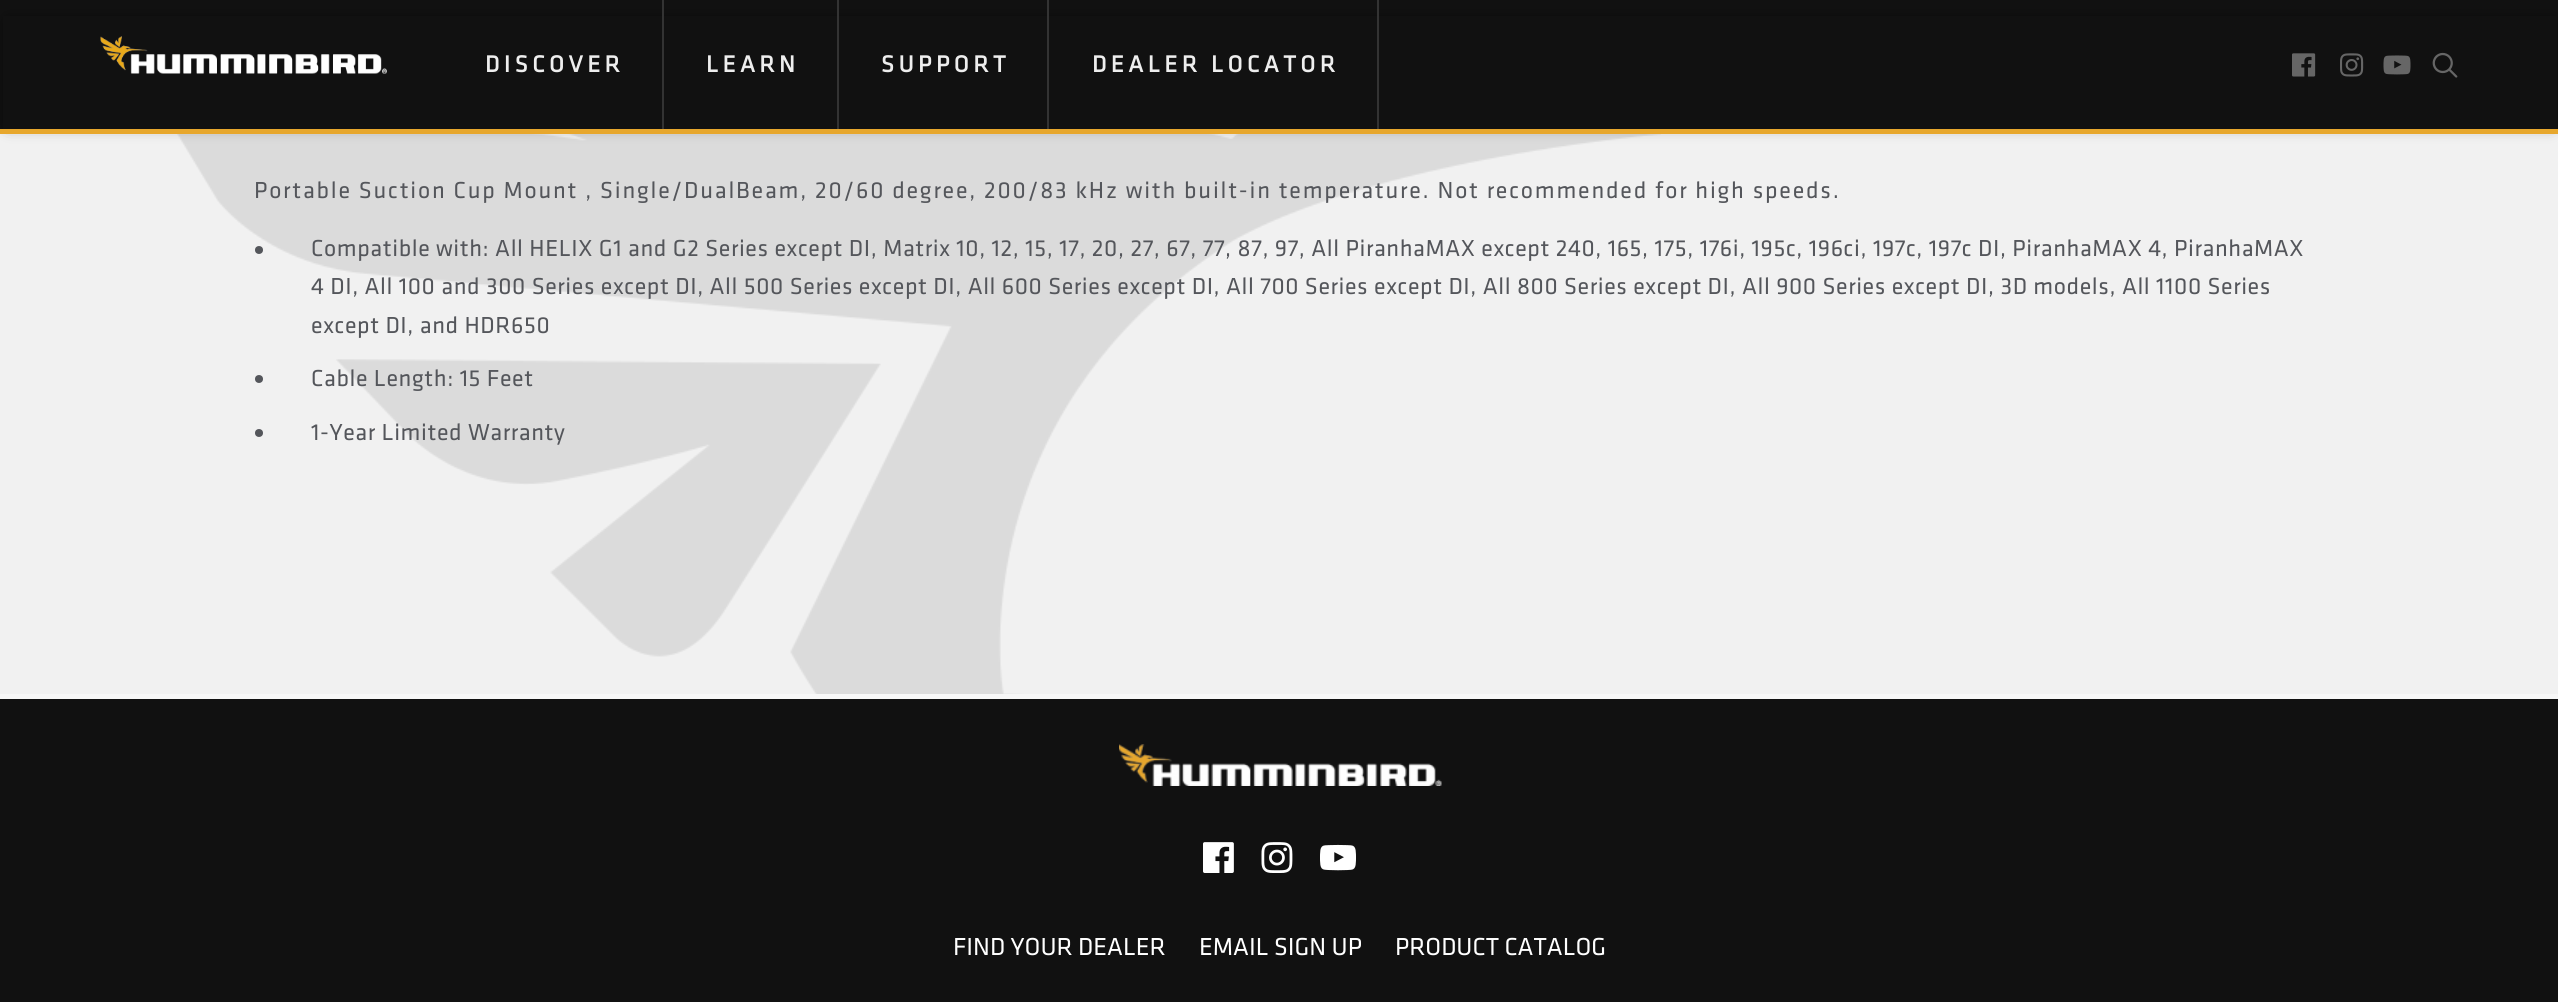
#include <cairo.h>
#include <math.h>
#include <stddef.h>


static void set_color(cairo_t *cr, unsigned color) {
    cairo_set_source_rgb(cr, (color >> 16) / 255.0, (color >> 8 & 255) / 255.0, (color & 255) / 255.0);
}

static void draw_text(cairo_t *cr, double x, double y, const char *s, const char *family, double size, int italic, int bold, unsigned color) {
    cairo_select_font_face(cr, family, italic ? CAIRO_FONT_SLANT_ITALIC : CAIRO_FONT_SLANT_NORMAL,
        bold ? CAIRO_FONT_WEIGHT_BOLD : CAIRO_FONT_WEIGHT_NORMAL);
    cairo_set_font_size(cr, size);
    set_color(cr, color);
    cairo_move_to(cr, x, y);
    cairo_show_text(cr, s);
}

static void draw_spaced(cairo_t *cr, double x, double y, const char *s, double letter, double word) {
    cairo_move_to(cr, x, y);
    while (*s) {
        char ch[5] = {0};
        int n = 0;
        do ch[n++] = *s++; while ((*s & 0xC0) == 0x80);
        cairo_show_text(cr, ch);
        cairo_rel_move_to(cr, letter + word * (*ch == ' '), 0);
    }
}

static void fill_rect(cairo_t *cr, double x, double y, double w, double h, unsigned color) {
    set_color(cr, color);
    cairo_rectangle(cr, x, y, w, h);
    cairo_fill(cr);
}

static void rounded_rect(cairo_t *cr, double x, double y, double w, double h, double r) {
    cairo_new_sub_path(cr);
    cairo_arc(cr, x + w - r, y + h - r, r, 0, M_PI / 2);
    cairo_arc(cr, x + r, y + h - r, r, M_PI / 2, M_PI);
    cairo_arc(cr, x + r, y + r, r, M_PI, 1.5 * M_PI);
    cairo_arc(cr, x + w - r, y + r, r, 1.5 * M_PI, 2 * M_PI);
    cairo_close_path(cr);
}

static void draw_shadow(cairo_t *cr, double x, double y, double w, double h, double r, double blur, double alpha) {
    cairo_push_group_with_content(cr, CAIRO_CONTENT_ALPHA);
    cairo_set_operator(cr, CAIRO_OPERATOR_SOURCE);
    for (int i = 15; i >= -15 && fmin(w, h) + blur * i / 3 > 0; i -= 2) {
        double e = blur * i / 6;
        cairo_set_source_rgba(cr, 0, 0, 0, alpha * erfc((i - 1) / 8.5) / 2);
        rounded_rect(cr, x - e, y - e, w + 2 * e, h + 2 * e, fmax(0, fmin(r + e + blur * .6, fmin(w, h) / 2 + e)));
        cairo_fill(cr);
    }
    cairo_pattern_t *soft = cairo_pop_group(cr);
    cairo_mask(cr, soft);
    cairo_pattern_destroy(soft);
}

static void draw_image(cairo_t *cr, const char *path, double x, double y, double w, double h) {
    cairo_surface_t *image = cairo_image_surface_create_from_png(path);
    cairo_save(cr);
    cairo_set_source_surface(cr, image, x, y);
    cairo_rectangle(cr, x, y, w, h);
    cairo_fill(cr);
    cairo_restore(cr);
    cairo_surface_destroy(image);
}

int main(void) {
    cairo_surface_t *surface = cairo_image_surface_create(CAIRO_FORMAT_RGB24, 2558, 1002);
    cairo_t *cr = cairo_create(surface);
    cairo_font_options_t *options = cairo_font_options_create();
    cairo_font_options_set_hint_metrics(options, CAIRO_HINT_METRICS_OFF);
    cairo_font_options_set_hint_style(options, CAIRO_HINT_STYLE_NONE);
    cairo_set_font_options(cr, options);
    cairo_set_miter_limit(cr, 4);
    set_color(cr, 0x111111);
    cairo_paint(cr);
    fill_rect(cr, 0, 134, 2558, 560, 0xF1F1F1);
    draw_image(cr, "assets/img6.png", 177, 134, 1484, 560);
    cairo_rectangle(cr, -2.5, -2.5, 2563, 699);
    set_color(cr, 0xF7F7F7);
    cairo_set_line_width(cr, 5);
    cairo_stroke(cr);
    set_color(cr, 0x000000);
    draw_shadow(cr, 8, 21, 2544, 104, 0, 7.5, 0.6);
    fill_rect(cr, 3, 16, 2554, 113, 0x111111);
    fill_rect(cr, 0, 129, 2558, 5, 0xE7A72D);
    draw_image(cr, "assets/img1.png", 100, 36, 287, 38);
    fill_rect(cr, 662, 0, 2, 129, 0x333333);
    cairo_select_font_face(cr, "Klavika", CAIRO_FONT_SLANT_NORMAL, CAIRO_FONT_WEIGHT_BOLD);
    cairo_set_font_size(cr, 24);
    set_color(cr, 0xEEEEEE);
    draw_spaced(cr, 485, 72, "DISCOVER", 4.5, 0);
    fill_rect(cr, 837, 0, 2, 129, 0x333333);
    set_color(cr, 0xEEEEEE);
    draw_spaced(cr, 706, 72, "LEARN", 4.5, 0);
    fill_rect(cr, 1047, 0, 2, 129, 0x333333);
    set_color(cr, 0xEEEEEE);
    draw_spaced(cr, 881, 72, "SUPPORT", 4.5, 0);
    fill_rect(cr, 1377, 0, 2, 129, 0x333333);
    set_color(cr, 0xEEEEEE);
    draw_spaced(cr, 1092, 72, "DEALER LOCATOR", 4.5, 0);
    draw_image(cr, "assets/img2.png", 2292, 53, 24, 24);
    draw_image(cr, "assets/img3.png", 2340, 53, 24, 24);
    draw_image(cr, "assets/img4.png", 2383, 55, 28, 20);
    draw_image(cr, "assets/img5.png", 2432, 52, 26, 26);
    cairo_select_font_face(cr, "Klavika", CAIRO_FONT_SLANT_NORMAL, CAIRO_FONT_WEIGHT_NORMAL);
    set_color(cr, 0x54565B);
    draw_spaced(cr, 254, 198, "Portable Suction Cup Mount , Single/DualBeam, 20/60 degree, 200/83 kHz with built-in temperature. Not recommended for high speeds.", 1.8, 0);
    cairo_new_path(cr);
    cairo_arc(cr, 259, 250, 4, 0, 2 * M_PI);
    cairo_fill(cr);
    draw_spaced(cr, 311, 256, "Compatible with: All HELIX G1 and G2 Series except DI, Matrix 10, 12, 15, 17, 20, 27, 67, 77, 87, 97, All PiranhaMAX except 240, 165, 175, 176i, 195c, 196ci, 197c, 197c DI, PiranhaMAX 4, PiranhaMAX", 0.6, 0);
    draw_spaced(cr, 311, 294, "4 DI, All 100 and 300 Series except DI, All 500 Series except DI, All 600 Series except DI, All 700 Series except DI, All 800 Series except DI, All 900 Series except DI, 3D models, All 1100 Series", 0.6, 0);
    draw_spaced(cr, 311, 333, "except DI, and HDR650", 0.6, 0);
    cairo_new_path(cr);
    cairo_arc(cr, 259, 379, 4, 0, 2 * M_PI);
    cairo_fill(cr);
    draw_spaced(cr, 311, 386, "Cable Length: 15 Feet", 0.6, 0);
    cairo_new_path(cr);
    cairo_arc(cr, 259, 433, 4, 0, 2 * M_PI);
    cairo_fill(cr);
    draw_spaced(cr, 311, 440, "1-Year Limited Warranty", 0.6, 0);
    draw_image(cr, "assets/img7.png", 1119, 744, 323, 42);
    draw_image(cr, "assets/img8.png", 1203, 842, 31, 31);
    draw_image(cr, "assets/img9.png", 1261, 842, 32, 31);
    draw_image(cr, "assets/img10.png", 1320, 844, 36, 27);
    draw_text(cr, 953, 955, "FIND YOUR DEALER", "Klavika", 25.5, 0, 0, 0xFFFFFF);
    draw_text(cr, 1199, 955, "EMAIL SIGN UP", "Klavika", 25.5, 0, 0, 0xFFFFFF);
    draw_text(cr, 1395, 955, "PRODUCT CATALOG", "Klavika", 25.5, 0, 0, 0xFFFFFF);
    cairo_surface_write_to_png(surface, "output.png");
    cairo_font_options_destroy(options);
    cairo_destroy(cr);
    cairo_surface_destroy(surface);
    return 0;
}
